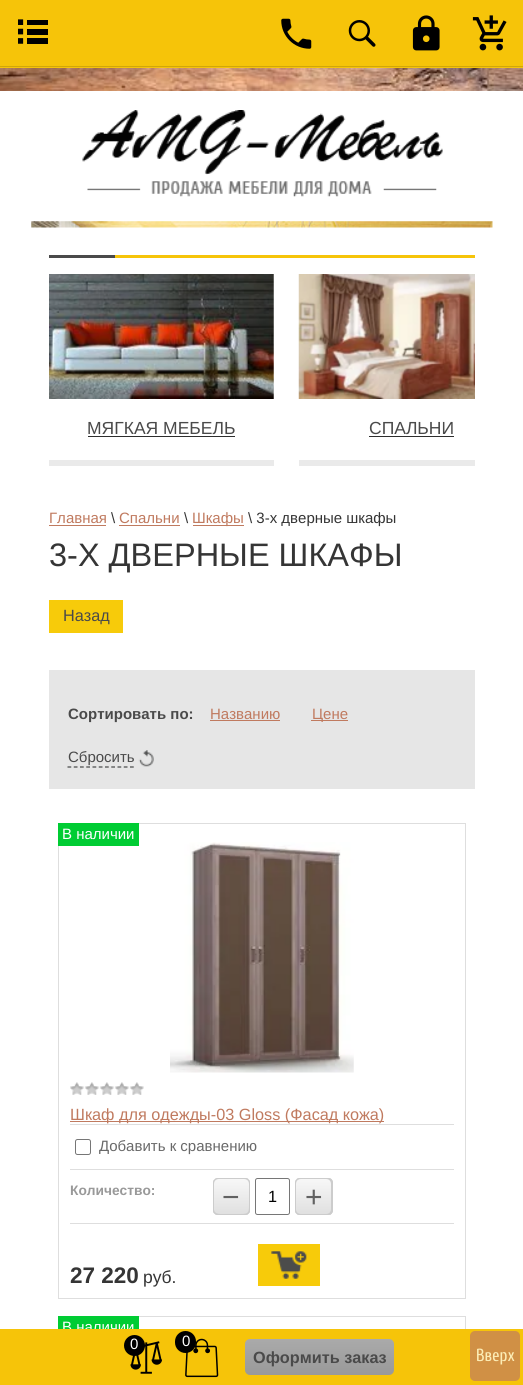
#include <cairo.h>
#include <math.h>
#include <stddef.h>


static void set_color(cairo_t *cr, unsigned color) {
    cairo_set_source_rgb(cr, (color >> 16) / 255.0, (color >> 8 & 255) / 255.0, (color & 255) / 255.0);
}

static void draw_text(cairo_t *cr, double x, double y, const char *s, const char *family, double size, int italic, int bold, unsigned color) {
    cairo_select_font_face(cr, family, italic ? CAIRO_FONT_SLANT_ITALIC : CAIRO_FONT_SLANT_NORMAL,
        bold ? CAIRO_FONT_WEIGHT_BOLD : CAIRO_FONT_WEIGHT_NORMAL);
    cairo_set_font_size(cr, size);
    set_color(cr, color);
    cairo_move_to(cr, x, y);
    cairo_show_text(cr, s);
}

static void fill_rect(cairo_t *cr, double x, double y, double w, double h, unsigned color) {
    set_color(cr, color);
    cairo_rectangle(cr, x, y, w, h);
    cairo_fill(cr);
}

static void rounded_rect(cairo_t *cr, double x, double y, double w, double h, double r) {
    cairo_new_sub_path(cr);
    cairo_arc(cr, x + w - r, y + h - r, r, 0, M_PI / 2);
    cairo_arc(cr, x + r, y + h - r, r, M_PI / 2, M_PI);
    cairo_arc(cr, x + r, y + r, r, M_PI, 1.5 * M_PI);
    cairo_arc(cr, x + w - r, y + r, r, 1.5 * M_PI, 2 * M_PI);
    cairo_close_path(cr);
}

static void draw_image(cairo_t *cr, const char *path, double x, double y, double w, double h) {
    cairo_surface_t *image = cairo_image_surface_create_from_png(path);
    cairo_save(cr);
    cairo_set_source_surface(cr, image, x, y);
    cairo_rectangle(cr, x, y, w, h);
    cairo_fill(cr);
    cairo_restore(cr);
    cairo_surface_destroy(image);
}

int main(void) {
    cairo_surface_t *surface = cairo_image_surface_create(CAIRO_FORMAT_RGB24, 523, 1385);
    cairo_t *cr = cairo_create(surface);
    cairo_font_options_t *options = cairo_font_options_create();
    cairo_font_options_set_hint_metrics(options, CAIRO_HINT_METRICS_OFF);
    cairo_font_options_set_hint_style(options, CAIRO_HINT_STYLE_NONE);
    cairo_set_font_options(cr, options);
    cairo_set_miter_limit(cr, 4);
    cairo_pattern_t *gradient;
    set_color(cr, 0xFFFFFF);
    cairo_paint(cr);
    fill_rect(cr, 0, 0, 523, 68, 0xF6C409);
    fill_rect(cr, 0, 66, 523, 1, 0xD1A708);
    draw_image(cr, "assets/img1.png", 18, 19, 30, 25);
    draw_image(cr, "assets/img2.png", 281, 18, 31, 31);
    draw_image(cr, "assets/img3.png", 348, 20, 28, 27);
    draw_image(cr, "assets/img4.png", 412, 15, 28, 36);
    draw_image(cr, "assets/img5.png", 472, 15, 35, 36);
    draw_image(cr, "assets/img6.png", 0, 68, 523, 23);
    draw_image(cr, "assets/img7.png", 82, 110, 361, 65);
    draw_image(cr, "assets/img8.png", 87, 181, 350, 16);
    draw_image(cr, "assets/img9.png", 31, 221, 462, 7);
    fill_rect(cr, 115, 255, 360, 3, 0xF6C409);
    fill_rect(cr, 49, 255, 66, 3, 0x4A4A4A);
    fill_rect(cr, 49, 460, 225, 6, 0xEAEAEA);
    draw_image(cr, "assets/img10.png", 49, 274, 225, 125);
    draw_text(cr, 87, 434, "МЯГКАЯ МЕБЕЛЬ", "Liberation Sans", 17.5, 0, 0, 0x4A4A4A);
    fill_rect(cr, 88, 436, 147, 1, 0x2D2D2D);
    fill_rect(cr, 299, 460, 176, 6, 0xEAEAEA);
    draw_image(cr, "assets/img11.png", 298, 274, 177, 125);
    draw_text(cr, 369, 434, "СПАЛЬНИ", "Liberation Sans", 17.5, 0, 0, 0x4A4A4A);
    fill_rect(cr, 369, 436, 85, 1, 0x2D2D2D);
    draw_text(cr, 49, 523, "Главная", "Liberation Sans", 15, 0, 0, 0xC07A5F);
    fill_rect(cr, 49, 525, 57, 1, 0xC07A5F);
    draw_text(cr, 111, 523, "\\", "Liberation Sans", 15, 0, 0, 0x353535);
    draw_text(cr, 119, 523, "Спальни", "Liberation Sans", 15, 0, 0, 0xC07A5F);
    fill_rect(cr, 119, 525, 61, 1, 0xC07A5F);
    draw_text(cr, 184, 523, "\\", "Liberation Sans", 15, 0, 0, 0x353535);
    fill_rect(cr, 193, 525, 51, 1, 0xC07A5F);
    draw_text(cr, 192, 523, "Шкафы", "Liberation Sans", 15, 0, 0, 0xC07A5F);
    draw_text(cr, 248, 523, "\\ 3-х дверные шкафы", "Liberation Sans", 15, 0, 0, 0x353535);
    draw_text(cr, 49, 566, "3-Х ДВЕРНЫЕ ШКАФЫ", "Liberation Sans", 32.5, 0, 0, 0x353535);
    fill_rect(cr, 49, 600, 74, 33, 0xF7CB0A);
    draw_text(cr, 63, 621, "Назад", "Liberation Sans", 16.25, 0, 0, 0x4A4A4A);
    fill_rect(cr, 49, 670, 426, 119, 0xE6E6E6);
    draw_text(cr, 68, 719, "Сортировать по:", "Liberation Sans", 15, 0, 1, 0x4A4A4A);
    draw_text(cr, 210, 719, "Названию", "Liberation Sans", 15, 0, 0, 0xC07A5F);
    fill_rect(cr, 210, 720, 70, 1, 0xC07A5F);
    fill_rect(cr, 311, 720, 37, 1, 0xC07A5F);
    draw_text(cr, 312, 719, "Цене", "Liberation Sans", 15, 0, 0, 0xC07A5F);
    cairo_new_path(cr);
    cairo_move_to(cr, 67.5, 767);
    cairo_line_to(cr, 134, 767);
    set_color(cr, 0x464747);
    cairo_set_line_width(cr, 1.2);
    cairo_set_dash(cr, (double[]){3.75, 2.5}, 2, 0);
    cairo_stroke(cr);
    draw_text(cr, 68, 762, "Сбросить", "Liberation Sans", 15, 0, 0, 0x4A4A4A);
    draw_image(cr, "assets/img12.png", 138, 750, 16, 17);
    cairo_rectangle(cr, 58.5, 823.5, 407, 475);
    set_color(cr, 0xDEDEDE);
    cairo_set_line_width(cr, 1);
    cairo_set_dash(cr, NULL, 0, 0);
    cairo_stroke(cr);
    fill_rect(cr, 58, 823, 81, 23, 0x00CC33);
    draw_text(cr, 62, 839, "В наличии", "Liberation Sans", 15, 0, 0, 0xFFFFFF);
    draw_image(cr, "assets/img13.png", 170, 842, 184, 231);
    draw_image(cr, "assets/img14.png", 70, 1082, 74, 13);
    fill_rect(cr, 70, 1121, 314, 1, 0xC07A5F);
    draw_text(cr, 70, 1120, "Шкаф для одежды-03 Gloss (Фасад кожа)", "Liberation Sans", 16.25, 0, 0, 0xC07A5F);
    fill_rect(cr, 70, 1124, 384, 1, 0xDEDEDE);
    rounded_rect(cr, 75.5, 1139.5, 15, 15, 2);
    set_color(cr, 0x767676);
    cairo_stroke(cr);
    draw_text(cr, 99, 1151, "Добавить к сравнению", "Liberation Sans", 15, 0, 0, 0x696969);
    fill_rect(cr, 70, 1169, 384, 1, 0xDEDEDE);
    draw_text(cr, 70, 1195, "Количество:", "Liberation Sans", 13.75, 0, 1, 0x999999);
    gradient = cairo_pattern_create_linear(231, 1178, 231, 1215);
    cairo_pattern_add_color_stop_rgba(gradient, 0, 0.973, 0.973, 0.973, 1);
    cairo_pattern_add_color_stop_rgba(gradient, 1, 0.875, 0.875, 0.875, 1);
    cairo_set_source(cr, gradient);
    cairo_pattern_destroy(gradient);
    rounded_rect(cr, 213, 1178, 37, 37, 5);
    cairo_fill(cr);
    set_color(cr, 0xCCCCCC);
    cairo_new_path(cr);
    cairo_move_to(cr, 214, 1180);
    cairo_curve_to(cr, 213.5, 1180.5, 213, 1182, 213, 1183);
    cairo_line_to(cr, 213, 1210);
    cairo_curve_to(cr, 213, 1213, 215, 1215, 218, 1215);
    cairo_line_to(cr, 245, 1215);
    cairo_curve_to(cr, 246.5, 1215, 248, 1214.5, 249, 1213.5);
    cairo_curve_to(cr, 246.5, 1214.5, 243.5, 1214, 241.5, 1214);
    cairo_line_to(cr, 223.5, 1214);
    cairo_curve_to(cr, 220, 1214, 215, 1214.5, 214, 1210);
    cairo_close_path(cr);
    cairo_fill(cr);
    cairo_new_path(cr);
    cairo_move_to(cr, 216, 1179);
    cairo_line_to(cr, 244, 1179);
    cairo_curve_to(cr, 247, 1179, 249, 1181, 249, 1184);
    cairo_line_to(cr, 249, 1211);
    cairo_curve_to(cr, 249, 1212, 249, 1213, 248.5, 1214);
    cairo_curve_to(cr, 249.5, 1213, 250, 1211.5, 250, 1210);
    cairo_line_to(cr, 250, 1183);
    cairo_curve_to(cr, 250, 1180, 248, 1178, 245, 1178);
    cairo_line_to(cr, 218, 1178);
    cairo_curve_to(cr, 217, 1178, 215.5, 1178.5, 215, 1179);
    cairo_close_path(cr);
    cairo_fill(cr);
    cairo_new_path(cr);
    cairo_move_to(cr, 215, 1214);
    cairo_curve_to(cr, 215.5, 1214.5, 217, 1215, 218, 1215);
    cairo_line_to(cr, 245, 1215);
    cairo_curve_to(cr, 248, 1215, 250, 1213, 250, 1210);
    cairo_line_to(cr, 250, 1183);
    cairo_curve_to(cr, 250, 1182, 249.5, 1180.5, 249, 1180);
    cairo_line_to(cr, 249, 1199.5);
    cairo_curve_to(cr, 249, 1215, 250, 1214, 234.5, 1214);
    cairo_close_path(cr);
    cairo_fill(cr);
    cairo_new_path(cr);
    cairo_move_to(cr, 219, 1179);
    cairo_line_to(cr, 246, 1179);
    cairo_curve_to(cr, 247, 1179, 248, 1179, 249, 1179.5);
    cairo_curve_to(cr, 248, 1178.5, 246.5, 1178, 245, 1178);
    cairo_line_to(cr, 218, 1178);
    cairo_curve_to(cr, 215, 1178, 213, 1180, 213, 1183);
    cairo_line_to(cr, 213, 1210);
    cairo_curve_to(cr, 213, 1211.5, 213.5, 1213, 214.5, 1214);
    cairo_curve_to(cr, 214, 1213, 214, 1212, 214, 1211);
    cairo_line_to(cr, 214, 1184);
    cairo_curve_to(cr, 214, 1181, 216, 1179, 219, 1179);
    cairo_close_path(cr);
    cairo_fill(cr);
    draw_text(cr, 222, 1207, "−", "Liberation Sans", 30, 0, 0, 0x626262);
    rounded_rect(cr, 255.5, 1178.5, 34, 36, 2);
    set_color(cr, 0x767676);
    cairo_stroke(cr);
    draw_text(cr, 268, 1202, "1", "Liberation Sans", 16.25, 0, 0, 0x000000);
    gradient = cairo_pattern_create_linear(314, 1178, 314, 1215);
    cairo_pattern_add_color_stop_rgba(gradient, 0, 0.973, 0.973, 0.973, 1);
    cairo_pattern_add_color_stop_rgba(gradient, 1, 0.875, 0.875, 0.875, 1);
    cairo_set_source(cr, gradient);
    cairo_pattern_destroy(gradient);
    rounded_rect(cr, 295, 1178, 38, 37, 5);
    cairo_fill(cr);
    set_color(cr, 0xCCCCCC);
    cairo_new_path(cr);
    cairo_move_to(cr, 296, 1180);
    cairo_curve_to(cr, 295.5, 1180.5, 295, 1182, 295, 1183);
    cairo_line_to(cr, 295, 1210);
    cairo_curve_to(cr, 295, 1213, 297, 1215, 300, 1215);
    cairo_line_to(cr, 328, 1215);
    cairo_curve_to(cr, 329.5, 1215, 331, 1214.5, 332, 1213.5);
    cairo_curve_to(cr, 329.5, 1214.5, 326.5, 1214, 324.5, 1214);
    cairo_line_to(cr, 305.5, 1214);
    cairo_curve_to(cr, 302, 1214, 297, 1215, 296, 1210);
    cairo_close_path(cr);
    cairo_fill(cr);
    cairo_new_path(cr);
    cairo_move_to(cr, 299, 1179);
    cairo_line_to(cr, 326, 1179);
    cairo_curve_to(cr, 329, 1179, 331, 1181, 331, 1184);
    cairo_line_to(cr, 331, 1211);
    cairo_curve_to(cr, 331, 1212.5, 330.5, 1214, 329.5, 1215);
    cairo_curve_to(cr, 331.5, 1214, 333, 1212.5, 333, 1210);
    cairo_line_to(cr, 333, 1183);
    cairo_curve_to(cr, 333, 1180, 331, 1178, 328, 1178);
    cairo_line_to(cr, 300, 1178);
    cairo_curve_to(cr, 298.5, 1178, 297, 1178.5, 296, 1179.5);
    cairo_close_path(cr);
    cairo_fill(cr);
    cairo_new_path(cr);
    cairo_move_to(cr, 296, 1213.5);
    cairo_curve_to(cr, 297, 1214.5, 298.5, 1215, 300, 1215);
    cairo_line_to(cr, 328, 1215);
    cairo_curve_to(cr, 331, 1215, 333, 1213, 333, 1210);
    cairo_line_to(cr, 333, 1183);
    cairo_curve_to(cr, 333, 1181, 332, 1179.5, 330.5, 1178.5);
    cairo_line_to(cr, 331, 1181);
    cairo_line_to(cr, 331, 1209);
    cairo_curve_to(cr, 331, 1212, 329, 1214, 326, 1214);
    cairo_line_to(cr, 299, 1214);
    cairo_curve_to(cr, 298, 1214, 297, 1214, 296, 1213.5);
    cairo_close_path(cr);
    cairo_fill(cr);
    cairo_new_path(cr);
    cairo_move_to(cr, 301, 1179);
    cairo_line_to(cr, 329, 1179);
    cairo_curve_to(cr, 330, 1179, 331, 1179, 332, 1179.5);
    cairo_curve_to(cr, 331, 1178.5, 329.5, 1178, 328, 1178);
    cairo_line_to(cr, 300, 1178);
    cairo_curve_to(cr, 297, 1178, 295, 1180, 295, 1183);
    cairo_line_to(cr, 295, 1210);
    cairo_curve_to(cr, 295, 1211.5, 295.5, 1213, 296.5, 1214);
    cairo_curve_to(cr, 296, 1213, 296, 1212, 296, 1211);
    cairo_line_to(cr, 296, 1184);
    cairo_curve_to(cr, 296, 1181, 298, 1179, 301, 1179);
    cairo_close_path(cr);
    cairo_fill(cr);
    draw_text(cr, 305, 1207, "+", "Liberation Sans", 30, 0, 0, 0x626262);
    fill_rect(cr, 70, 1223, 384, 1, 0xDEDEDE);
    draw_text(cr, 70, 1283, "27 220", "Liberation Sans", 22.5, 0, 1, 0x353535);
    draw_text(cr, 143, 1283, "руб.", "Liberation Sans", 17.5, 0, 0, 0x353535);
    fill_rect(cr, 258, 1244, 62, 42, 0xF7CB0A);
    draw_image(cr, "assets/img15.png", 271, 1251, 36, 28);
    cairo_rectangle(cr, 58.5, 1316.5, 407, 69);
    set_color(cr, 0xDEDEDE);
    cairo_stroke(cr);
    fill_rect(cr, 58, 1316, 81, 13, 0x00CC33);
    draw_text(cr, 62, 1332, "В наличии", "Liberation Sans", 15, 0, 0, 0xFFFFFF);
    fill_rect(cr, 0, 1329, 523, 56, 0xF6C409);
    draw_image(cr, "assets/img16.png", 130, 1341, 32, 33);
    set_color(cr, 0x000000);
    cairo_arc(cr, 134.5, 1345.5, 10.5, 0, 2 * M_PI);
    cairo_fill(cr);
    draw_text(cr, 130, 1349, "0", "Liberation Sans", 15, 0, 0, 0xFFFFFF);
    draw_image(cr, "assets/img17.png", 185, 1338, 34, 40);
    set_color(cr, 0x000000);
    rounded_rect(cr, 175, 1331, 21, 22, 10.5);
    cairo_fill(cr);
    draw_text(cr, 182, 1346, "0", "Liberation Sans", 15, 0, 0, 0xFFFFFF);
    gradient = cairo_pattern_create_linear(319, 1339, 319, 1375);
    cairo_pattern_add_color_stop_rgba(gradient, 0, 0.667, 0.667, 0.667, 1);
    cairo_pattern_add_color_stop_rgba(gradient, 1, 0.6, 0.6, 0.6, 1);
    cairo_set_source(cr, gradient);
    cairo_pattern_destroy(gradient);
    rounded_rect(cr, 245, 1339, 149, 36, 5);
    cairo_fill(cr);
    draw_text(cr, 253, 1363, "Оформить заказ", "Liberation Sans", 16.25, 0, 1, 0x4A4A4A);
    set_color(cr, 0xD09045);
    rounded_rect(cr, 470, 1331, 50, 50, 5);
    cairo_fill(cr);
    draw_text(cr, 476, 1361, "Вверх", "Cuprum", 17.5, 0, 0, 0xFCEDB6);
    cairo_surface_write_to_png(surface, "output.png");
    cairo_font_options_destroy(options);
    cairo_destroy(cr);
    cairo_surface_destroy(surface);
    return 0;
}
